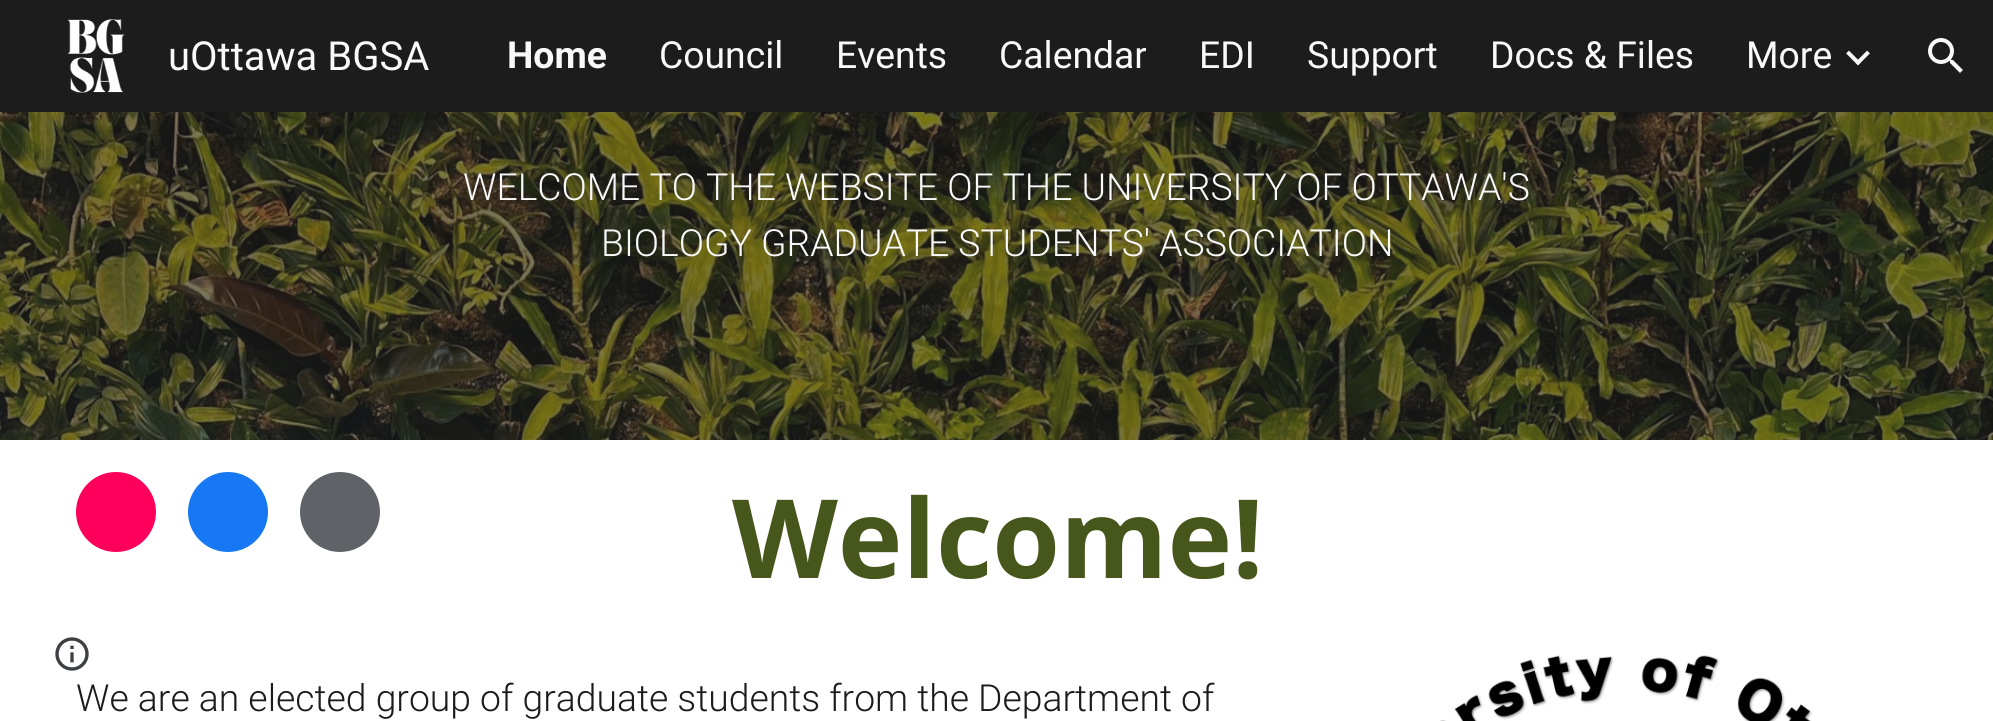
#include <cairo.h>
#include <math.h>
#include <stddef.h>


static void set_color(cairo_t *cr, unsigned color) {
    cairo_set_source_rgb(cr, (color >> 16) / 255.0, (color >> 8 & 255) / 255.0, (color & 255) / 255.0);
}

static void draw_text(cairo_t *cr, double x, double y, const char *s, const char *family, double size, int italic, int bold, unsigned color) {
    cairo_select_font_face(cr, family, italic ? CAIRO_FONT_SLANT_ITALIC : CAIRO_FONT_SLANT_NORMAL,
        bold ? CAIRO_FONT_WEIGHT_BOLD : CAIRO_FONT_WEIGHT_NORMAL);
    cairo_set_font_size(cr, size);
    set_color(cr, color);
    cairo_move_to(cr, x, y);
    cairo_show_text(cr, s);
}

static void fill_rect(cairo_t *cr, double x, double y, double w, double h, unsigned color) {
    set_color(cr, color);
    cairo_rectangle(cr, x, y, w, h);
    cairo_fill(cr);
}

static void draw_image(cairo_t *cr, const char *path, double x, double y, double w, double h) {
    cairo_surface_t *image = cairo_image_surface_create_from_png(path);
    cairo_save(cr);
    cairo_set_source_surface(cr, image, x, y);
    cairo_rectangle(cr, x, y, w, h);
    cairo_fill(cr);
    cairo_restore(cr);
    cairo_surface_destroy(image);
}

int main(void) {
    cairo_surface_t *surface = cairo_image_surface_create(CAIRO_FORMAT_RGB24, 1993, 721);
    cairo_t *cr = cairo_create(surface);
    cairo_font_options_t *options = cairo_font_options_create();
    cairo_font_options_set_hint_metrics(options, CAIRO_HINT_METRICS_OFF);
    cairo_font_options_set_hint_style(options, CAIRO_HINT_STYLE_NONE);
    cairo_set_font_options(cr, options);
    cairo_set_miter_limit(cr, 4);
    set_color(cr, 0xFFFFFF);
    cairo_paint(cr);
    fill_rect(cr, 0, 0, 1993, 112, 0x1C1C1C);
    draw_image(cr, "assets/img1.png", 67, 19, 58, 74);
    draw_text(cr, 168, 70, "uOttawa BGSA", "Roboto", 40, 0, 0, 0xF9F9F9);
    draw_text(cr, 507, 68, "Home", "Roboto", 37.3, 0, 1, 0xF9F9F9);
    draw_text(cr, 659, 68, "Council", "Roboto", 37.3, 0, 0, 0xF9F9F9);
    draw_text(cr, 836, 68, "Events", "Roboto", 37.3, 0, 0, 0xF9F9F9);
    cairo_save(cr);
    cairo_rectangle(cr, 998, 34, 148, 44);
    cairo_clip(cr);
    draw_text(cr, 999, 68, "Calendar", "Roboto", 37.3, 0, 0, 0xF9F9F9);
    cairo_restore(cr);
    draw_text(cr, 1199, 68, "EDI", "Roboto", 37.3, 0, 0, 0xF9F9F9);
    draw_text(cr, 1307, 68, "Support", "Roboto", 37.3, 0, 0, 0xF9F9F9);
    draw_text(cr, 1490, 68, "Docs & Files", "Roboto", 37.3, 0, 0, 0xF9F9F9);
    draw_text(cr, 1746, 68, "More", "Roboto", 37.3, 0, 0, 0xF9F9F9);
    cairo_new_path(cr);
    cairo_move_to(cr, 1847.5, 52);
    cairo_line_to(cr, 1859.5, 64);
    cairo_move_to(cr, 1856.5, 64);
    cairo_line_to(cr, 1868.5, 52);
    cairo_set_line_width(cr, 4);
    cairo_stroke(cr);
    draw_image(cr, "assets/img2.png", 1928, 38, 35, 35);
    draw_image(cr, "assets/img3.png", 55, 637, 34, 34);
    draw_image(cr, "assets/img4.png", 0, 112, 1993, 328);
    draw_text(cr, 463, 200, "WELCOME TO THE WEBSITE OF THE UNIVERSITY OF OTTAWA'S", "Roboto Light", 37.3, 0, 0, 0xF9F9F9);
    draw_text(cr, 601, 256, "BIOLOGY GRADUATE STUDENTS' ASSOCIATION", "Roboto Light", 37.3, 0, 0, 0xF9F9F9);
    set_color(cr, 0xFE005C);
    cairo_new_path(cr);
    cairo_arc(cr, 116, 512, 40, 0, 2 * M_PI);
    cairo_fill(cr);
    set_color(cr, 0x1877F2);
    cairo_arc(cr, 228, 512, 40, 0, 2 * M_PI);
    cairo_fill(cr);
    set_color(cr, 0x5F6368);
    cairo_arc(cr, 340, 512, 40, 0, 2 * M_PI);
    cairo_fill(cr);
    draw_text(cr, 732, 578, "Welcome!", "Open Sans", 109.5, 0, 1, 0x47561A);
    draw_text(cr, 76, 711, "We are an elected group of graduate students from the Department of", "Roboto Light", 37.3, 0, 0, 0x1C1C1C);
    draw_image(cr, "assets/img5.png", 1440, 655, 372, 66);
    cairo_surface_write_to_png(surface, "output.png");
    cairo_font_options_destroy(options);
    cairo_destroy(cr);
    cairo_surface_destroy(surface);
    return 0;
}
